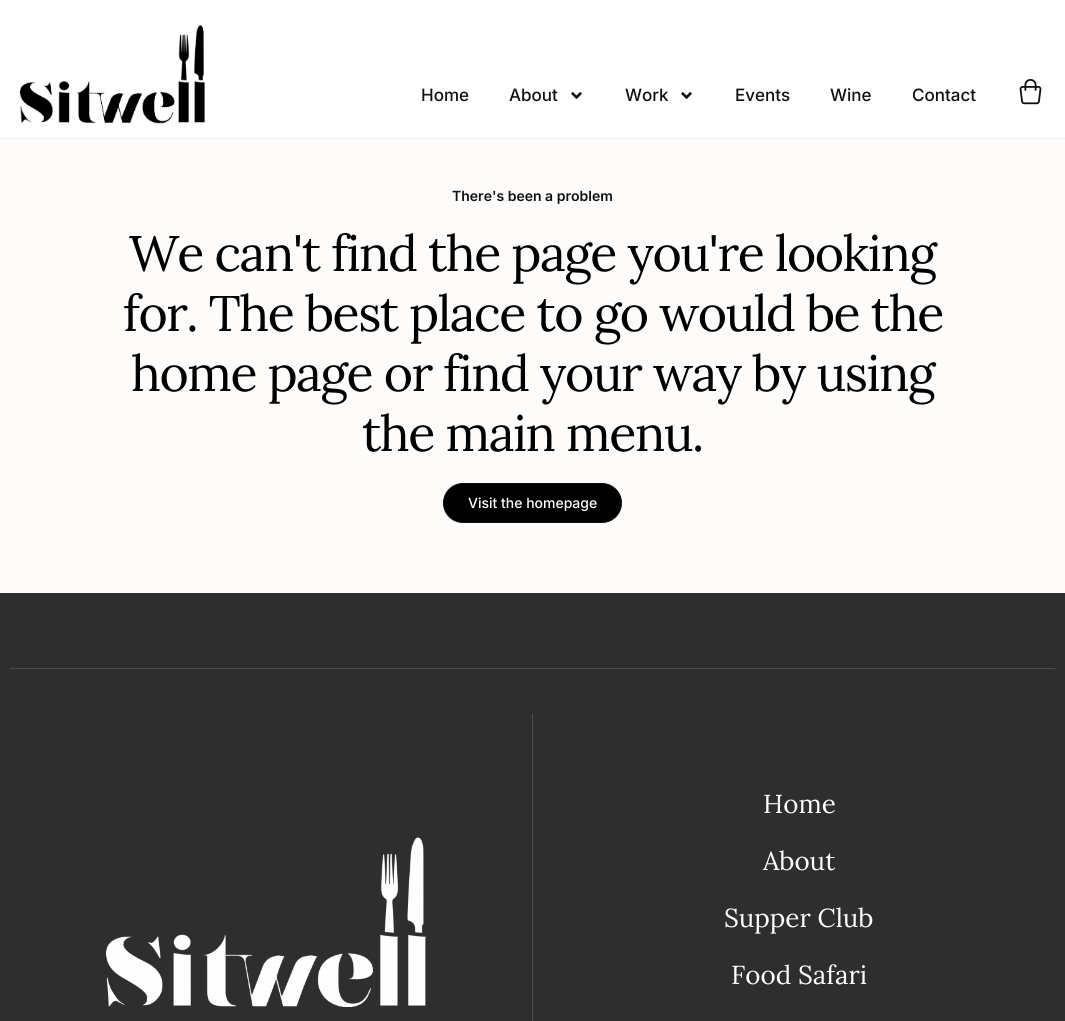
#include <cairo.h>
#include <math.h>
#include <stddef.h>


static void set_color(cairo_t *cr, unsigned color) {
    cairo_set_source_rgb(cr, (color >> 16) / 255.0, (color >> 8 & 255) / 255.0, (color & 255) / 255.0);
}

static void draw_text(cairo_t *cr, double x, double y, const char *s, const char *family, double size, int italic, int bold, unsigned color) {
    cairo_select_font_face(cr, family, italic ? CAIRO_FONT_SLANT_ITALIC : CAIRO_FONT_SLANT_NORMAL,
        bold ? CAIRO_FONT_WEIGHT_BOLD : CAIRO_FONT_WEIGHT_NORMAL);
    cairo_set_font_size(cr, size);
    set_color(cr, color);
    cairo_move_to(cr, x, y);
    cairo_show_text(cr, s);
}

static void draw_spaced(cairo_t *cr, double x, double y, const char *s, double letter, double word) {
    cairo_move_to(cr, x, y);
    while (*s) {
        char ch[5] = {0};
        int n = 0;
        do ch[n++] = *s++; while ((*s & 0xC0) == 0x80);
        cairo_show_text(cr, ch);
        cairo_rel_move_to(cr, letter + word * (*ch == ' '), 0);
    }
}

static void fill_rect(cairo_t *cr, double x, double y, double w, double h, unsigned color) {
    set_color(cr, color);
    cairo_rectangle(cr, x, y, w, h);
    cairo_fill(cr);
}

static void rounded_rect(cairo_t *cr, double x, double y, double w, double h, double r) {
    cairo_new_sub_path(cr);
    cairo_arc(cr, x + w - r, y + h - r, r, 0, M_PI / 2);
    cairo_arc(cr, x + r, y + h - r, r, M_PI / 2, M_PI);
    cairo_arc(cr, x + r, y + r, r, M_PI, 1.5 * M_PI);
    cairo_arc(cr, x + w - r, y + r, r, 1.5 * M_PI, 2 * M_PI);
    cairo_close_path(cr);
}

static void draw_image(cairo_t *cr, const char *path, double x, double y, double w, double h) {
    cairo_surface_t *image = cairo_image_surface_create_from_png(path);
    cairo_save(cr);
    cairo_set_source_surface(cr, image, x, y);
    cairo_rectangle(cr, x, y, w, h);
    cairo_fill(cr);
    cairo_restore(cr);
    cairo_surface_destroy(image);
}

int main(void) {
    cairo_surface_t *surface = cairo_image_surface_create(CAIRO_FORMAT_RGB24, 1065, 1021);
    cairo_t *cr = cairo_create(surface);
    cairo_font_options_t *options = cairo_font_options_create();
    cairo_font_options_set_hint_metrics(options, CAIRO_HINT_METRICS_OFF);
    cairo_font_options_set_hint_style(options, CAIRO_HINT_STYLE_NONE);
    cairo_set_font_options(cr, options);
    cairo_set_miter_limit(cr, 4);
    set_color(cr, 0xFDFCFB);
    cairo_paint(cr);
    fill_rect(cr, 0, 0, 1065, 138, 0xFFFFFF);
    fill_rect(cr, 0, 138, 1065, 1, 0xEEEEEE);
    draw_image(cr, "assets/img1.png", 20, 25, 185, 99);
    draw_text(cr, 421, 101, "Home", "Inter Medium", 17, 0, 0, 0x111111);
    draw_text(cr, 509, 101, "About", "Inter Medium", 17, 0, 0, 0x111111);
    draw_image(cr, "assets/img2.png", 571, 92, 11, 7);
    draw_text(cr, 625, 101, "Work", "Inter Medium", 17, 0, 0, 0x111111);
    draw_image(cr, "assets/img2.png", 681, 92, 11, 7);
    draw_text(cr, 735, 101, "Events", "Inter Medium", 17, 0, 0, 0x111111);
    draw_text(cr, 830, 101, "Wine", "Inter Medium", 17, 0, 0, 0x111111);
    draw_text(cr, 912, 101, "Contact", "Inter Medium", 17, 0, 0, 0x111111);
    draw_image(cr, "assets/img3.png", 1019, 79, 23, 26);
    draw_text(cr, 452, 201, "There's been a problem", "Inter SemiBold", 14, 0, 0, 0x111111);
    cairo_select_font_face(cr, "Lora", CAIRO_FONT_SLANT_NORMAL, CAIRO_FONT_WEIGHT_NORMAL);
    cairo_set_font_size(cr, 50);
    set_color(cr, 0x000000);
    draw_spaced(cr, 129, 271, "We can't find the page you're looking", -1.5, 0);
    draw_spaced(cr, 123, 331, "for. The best place to go would be the", -1.5, 0);
    draw_spaced(cr, 131, 391, "home page or find your way by using", -1.5, 0);
    draw_spaced(cr, 362, 451, "the main menu.", -1.5, 0);
    rounded_rect(cr, 443.5, 483.5, 178, 39, 19.5);
    cairo_fill_preserve(cr);
    set_color(cr, 0x111111);
    cairo_set_line_width(cr, 1);
    cairo_stroke(cr);
    draw_text(cr, 468, 508, "Visit the homepage", "Inter Medium", 14, 0, 0, 0xFFFFFF);
    fill_rect(cr, 0, 593, 1065, 428, 0x2E2E2E);
    fill_rect(cr, 10, 668, 1045, 1, 0x4B4B4B);
    draw_image(cr, "assets/img4.png", 106, 837, 320, 170);
    fill_rect(cr, 532, 714, 1, 307, 0x4B4B4B);
    draw_text(cr, 763, 813, "Home", "Lora", 26, 0, 0, 0xFFFFFF);
    draw_text(cr, 763, 870, "About", "Lora", 26, 0, 0, 0xFFFFFF);
    draw_text(cr, 724, 927, "Supper Club", "Lora", 26, 0, 0, 0xFFFFFF);
    draw_text(cr, 731, 984, "Food Safari", "Lora", 26, 0, 0, 0xFFFFFF);
    cairo_surface_write_to_png(surface, "output.png");
    cairo_font_options_destroy(options);
    cairo_destroy(cr);
    cairo_surface_destroy(surface);
    return 0;
}
